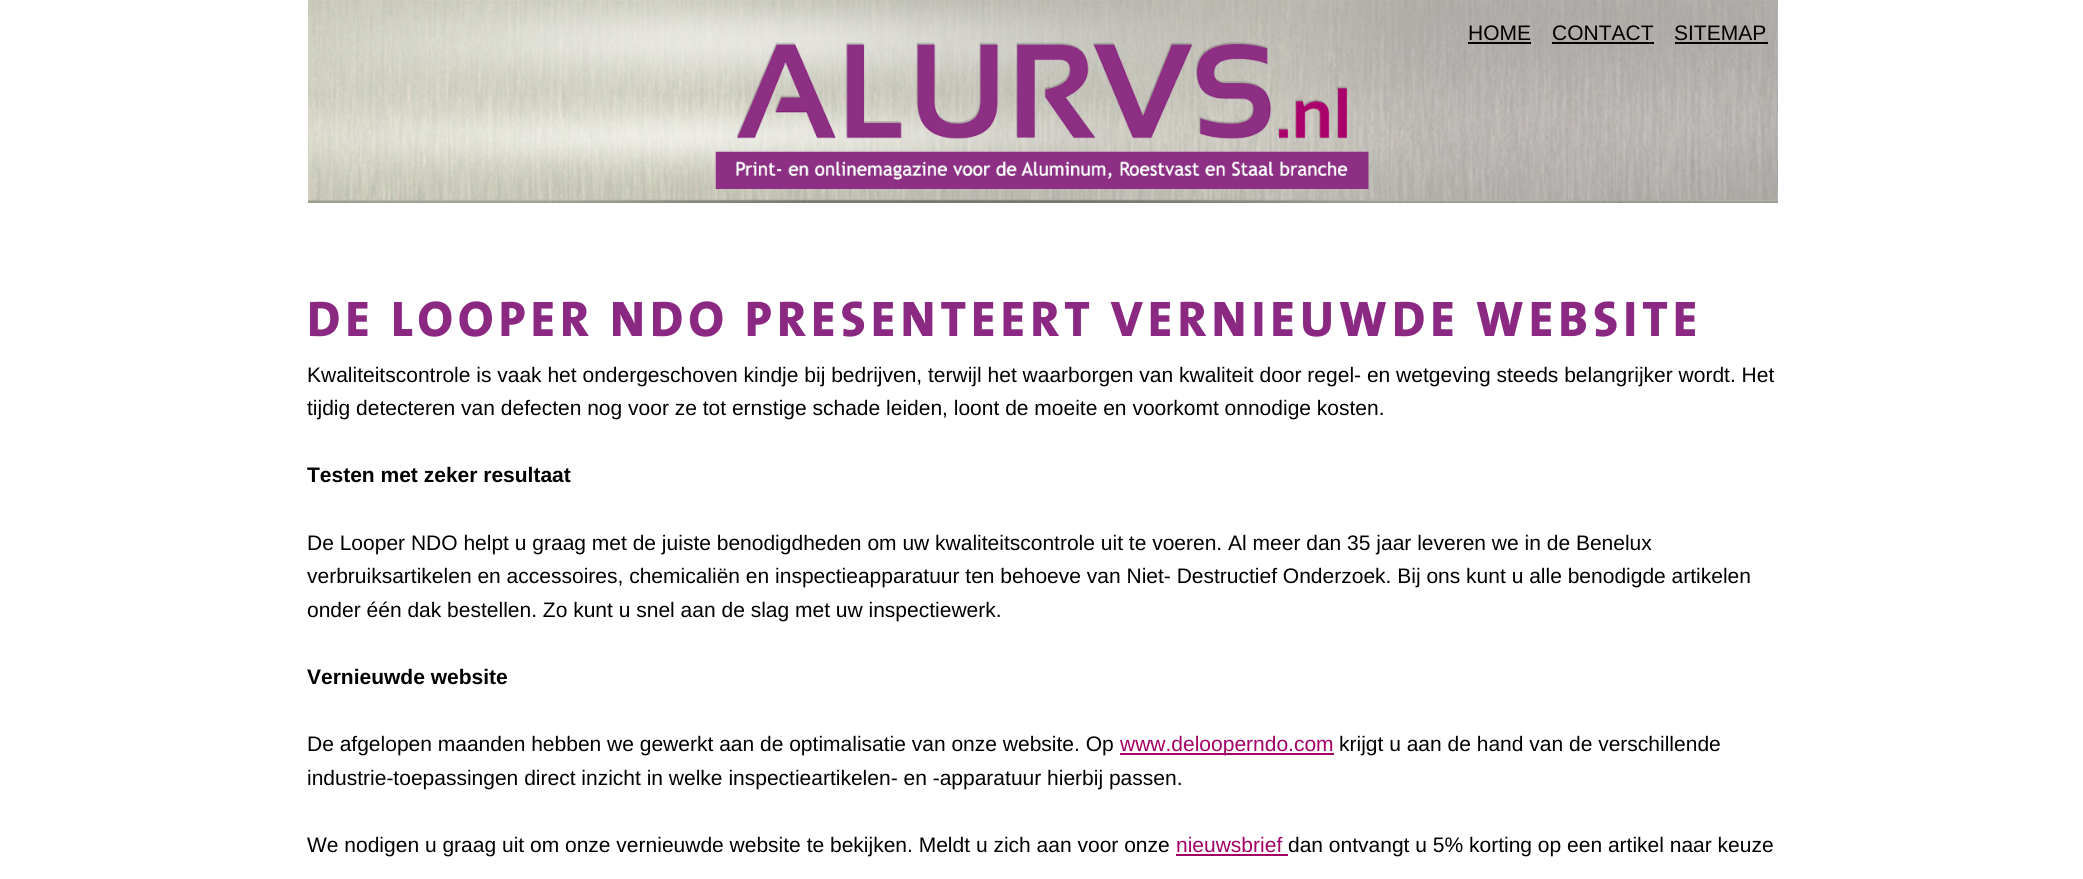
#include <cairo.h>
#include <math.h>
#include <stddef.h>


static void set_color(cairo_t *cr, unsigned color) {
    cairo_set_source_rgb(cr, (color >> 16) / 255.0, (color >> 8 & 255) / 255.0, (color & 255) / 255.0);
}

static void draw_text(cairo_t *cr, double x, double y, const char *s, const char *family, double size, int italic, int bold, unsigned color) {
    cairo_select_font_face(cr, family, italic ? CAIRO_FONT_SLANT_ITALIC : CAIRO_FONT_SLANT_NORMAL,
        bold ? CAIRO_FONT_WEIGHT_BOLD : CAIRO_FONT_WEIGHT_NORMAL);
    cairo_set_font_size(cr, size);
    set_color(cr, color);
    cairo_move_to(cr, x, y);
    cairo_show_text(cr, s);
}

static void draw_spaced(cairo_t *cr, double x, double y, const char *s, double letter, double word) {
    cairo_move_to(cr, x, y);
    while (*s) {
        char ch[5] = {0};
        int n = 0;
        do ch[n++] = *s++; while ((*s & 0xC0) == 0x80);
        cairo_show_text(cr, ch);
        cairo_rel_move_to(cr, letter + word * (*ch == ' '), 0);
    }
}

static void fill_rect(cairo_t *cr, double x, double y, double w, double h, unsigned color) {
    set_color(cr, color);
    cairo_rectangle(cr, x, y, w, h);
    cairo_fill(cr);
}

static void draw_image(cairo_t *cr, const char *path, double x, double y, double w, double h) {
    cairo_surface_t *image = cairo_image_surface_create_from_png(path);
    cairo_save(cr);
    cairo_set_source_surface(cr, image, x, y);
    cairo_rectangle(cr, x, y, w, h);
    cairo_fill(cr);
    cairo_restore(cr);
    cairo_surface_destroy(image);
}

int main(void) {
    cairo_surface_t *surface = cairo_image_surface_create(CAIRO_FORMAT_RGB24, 2083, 879);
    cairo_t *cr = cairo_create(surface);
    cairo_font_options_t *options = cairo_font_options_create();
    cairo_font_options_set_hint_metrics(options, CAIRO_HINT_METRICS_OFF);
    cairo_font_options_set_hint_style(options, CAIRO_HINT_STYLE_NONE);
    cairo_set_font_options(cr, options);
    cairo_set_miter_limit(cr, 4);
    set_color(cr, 0xFFFFFF);
    cairo_paint(cr);
    draw_image(cr, "assets/img1.png", 308, 0, 1470, 203);
    draw_text(cr, 1468, 40, "HOME", "Liberation Sans", 21, 0, 0, 0x000000);
    fill_rect(cr, 1468, 42, 63, 2, 0x000000);
    draw_text(cr, 1552, 40, "CONTACT", "Liberation Sans", 21, 0, 0, 0x000000);
    fill_rect(cr, 1552, 42, 102, 2, 0x000000);
    draw_text(cr, 1674, 40, "SITEMAP", "Liberation Sans", 21, 0, 0, 0x000000);
    fill_rect(cr, 1675, 42, 93, 2, 0x000000);
    draw_image(cr, "assets/img2.png", 715, 42, 654, 147);
    cairo_select_font_face(cr, "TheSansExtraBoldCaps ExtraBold", CAIRO_FONT_SLANT_NORMAL, CAIRO_FONT_WEIGHT_NORMAL);
    cairo_set_font_size(cr, 50.4);
    set_color(cr, 0x8B2882);
    draw_spaced(cr, 307, 336, "DE LOOPER NDO PRESENTEERT VERNIEUWDE WEBSITE", 5.05, 0);
    draw_text(cr, 307, 382, "Kwaliteitscontrole is vaak het ondergeschoven kindje bij bedrijven, terwijl het waarborgen van kwaliteit door regel- en wetgeving steeds belangrijker wordt. Het", "Liberation Sans", 21, 0, 0, 0x000000);
    draw_text(cr, 307, 415, "tijdig detecteren van defecten nog voor ze tot ernstige schade leiden, loont de moeite en voorkomt onnodige kosten.", "Liberation Sans", 21, 0, 0, 0x000000);
    draw_text(cr, 307, 482, "Testen met zeker resultaat", "Liberation Sans", 21, 0, 1, 0x000000);
    draw_text(cr, 307, 550, "De Looper NDO helpt u graag met de juiste benodigdheden om uw kwaliteitscontrole uit te voeren. Al meer dan 35 jaar leveren we in de Benelux", "Liberation Sans", 21, 0, 0, 0x000000);
    draw_text(cr, 307, 583, "verbruiksartikelen en accessoires, chemicaliën en inspectieapparatuur ten behoeve van Niet- Destructief Onderzoek. Bij ons kunt u alle benodigde artikelen", "Liberation Sans", 21, 0, 0, 0x000000);
    draw_text(cr, 307, 617, "onder één dak bestellen. Zo kunt u snel aan de slag met uw inspectiewerk.", "Liberation Sans", 21, 0, 0, 0x000000);
    draw_text(cr, 307, 684, "Vernieuwde website", "Liberation Sans", 21, 0, 1, 0x000000);
    draw_text(cr, 307, 751, "De afgelopen maanden hebben we gewerkt aan de optimalisatie van onze website. Op", "Liberation Sans", 21, 0, 0, 0x000000);
    fill_rect(cr, 1120, 753, 214, 2, 0xA20065);
    draw_text(cr, 1120, 751, "www.delooperndo.com", "Liberation Sans", 21, 0, 0, 0xA20065);
    draw_text(cr, 1339, 751, "krijgt u aan de hand van de verschillende", "Liberation Sans", 21, 0, 0, 0x000000);
    draw_text(cr, 307, 785, "industrie-toepassingen direct inzicht in welke inspectieartikelen- en -apparatuur hierbij passen.", "Liberation Sans", 21, 0, 0, 0x000000);
    draw_text(cr, 307, 852, "We nodigen u graag uit om onze vernieuwde website te bekijken. Meldt u zich aan voor onze", "Liberation Sans", 21, 0, 0, 0x000000);
    draw_text(cr, 1176, 852, "nieuwsbrief", "Liberation Sans", 21, 0, 0, 0xA20065);
    fill_rect(cr, 1176, 854, 112, 2, 0xA20065);
    draw_text(cr, 1288, 852, "dan ontvangt u 5% korting op een artikel naar keuze", "Liberation Sans", 21, 0, 0, 0x000000);
    cairo_surface_write_to_png(surface, "output.png");
    cairo_font_options_destroy(options);
    cairo_destroy(cr);
    cairo_surface_destroy(surface);
    return 0;
}
